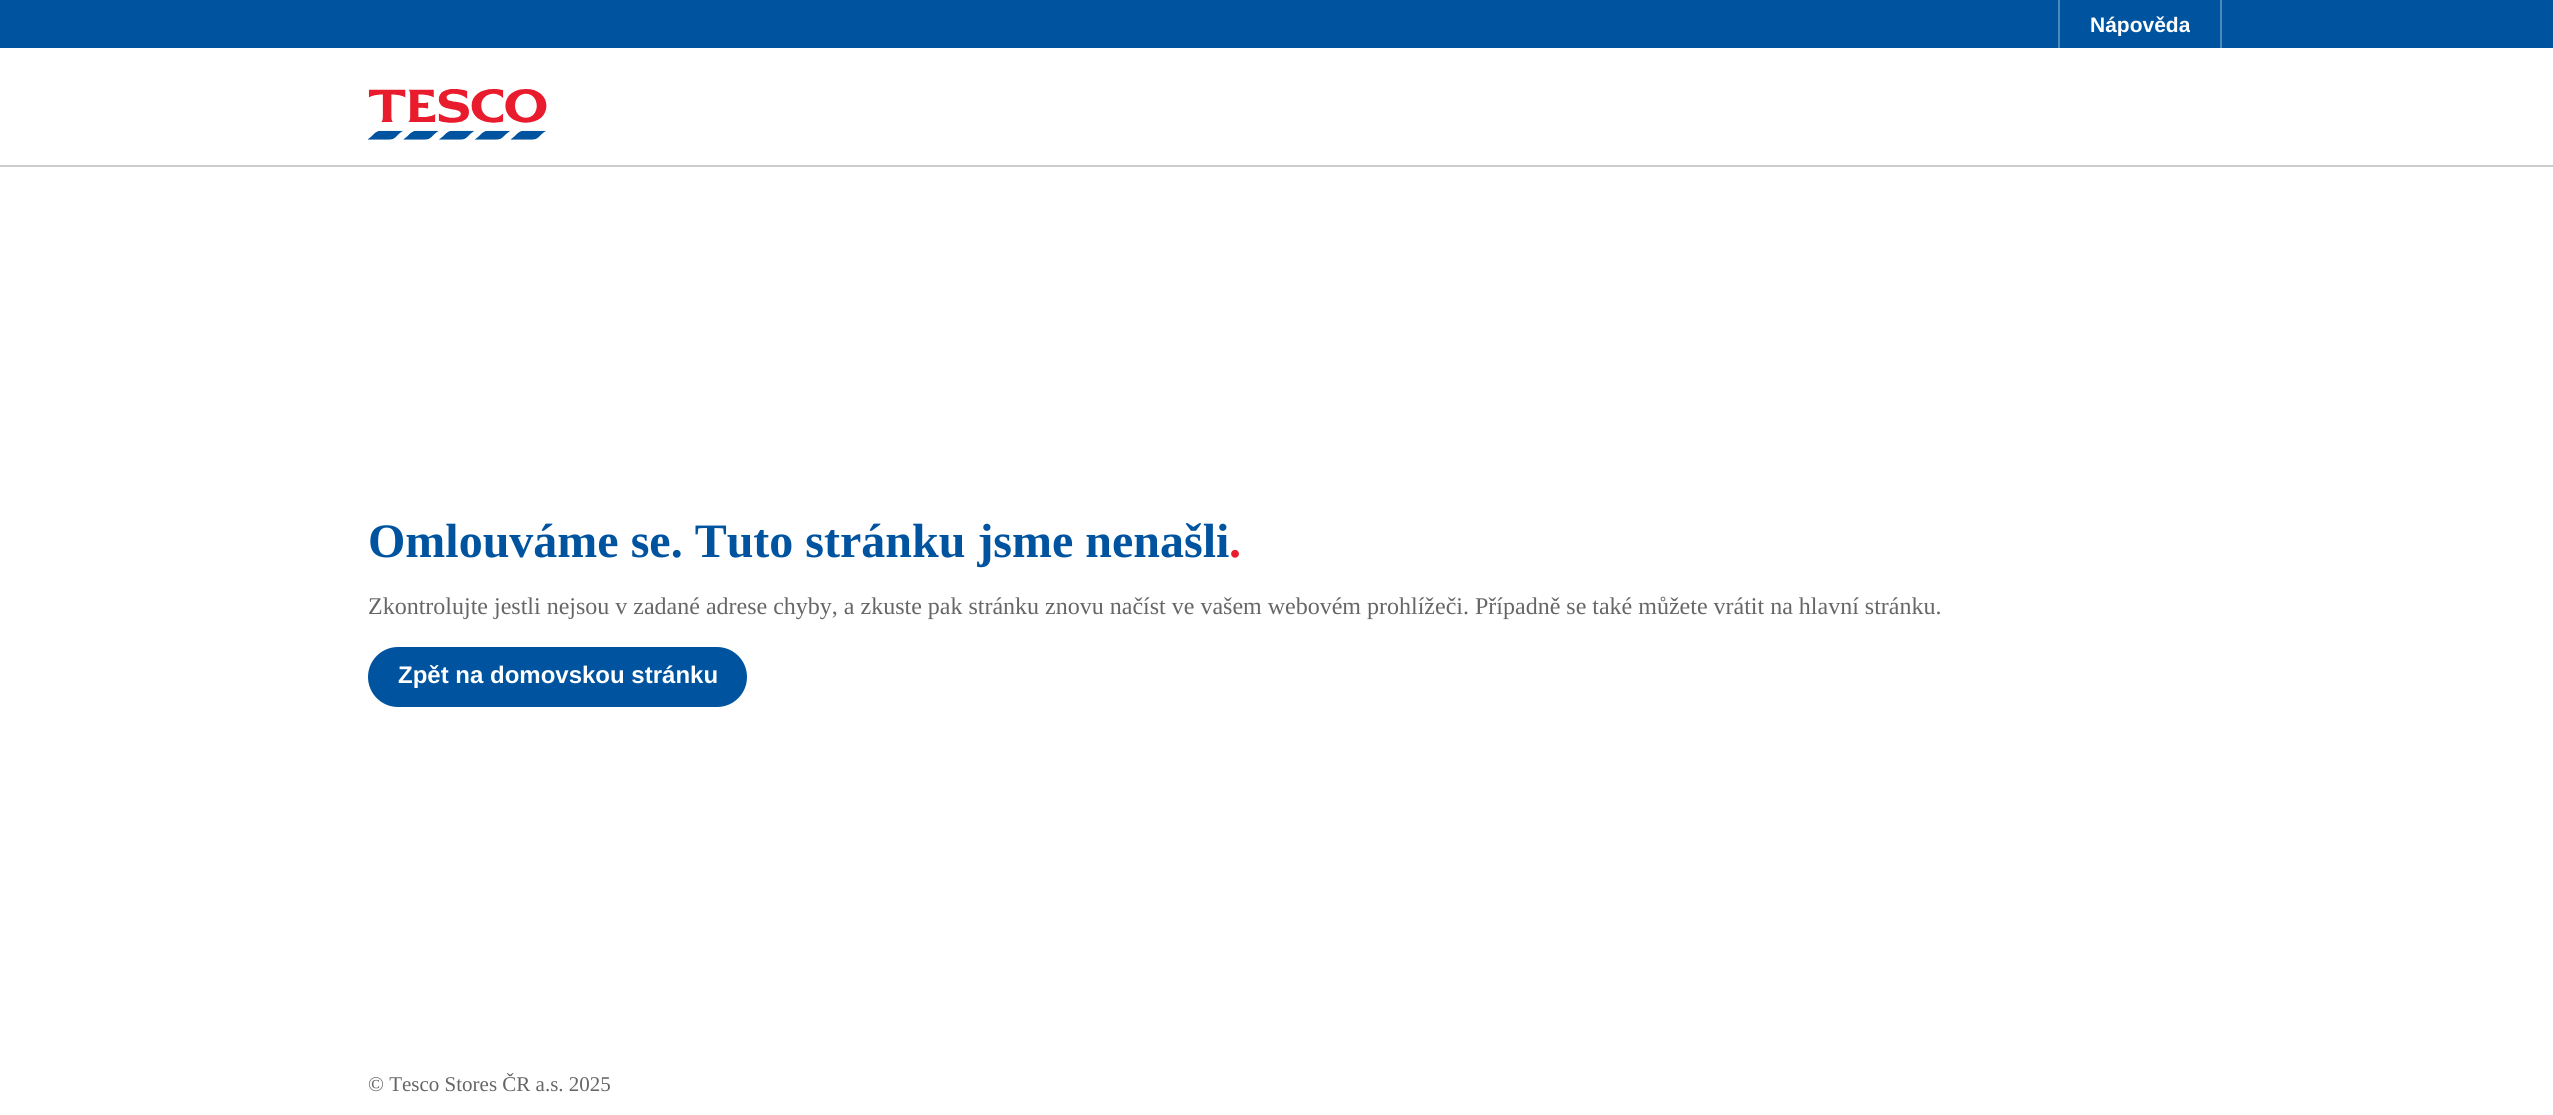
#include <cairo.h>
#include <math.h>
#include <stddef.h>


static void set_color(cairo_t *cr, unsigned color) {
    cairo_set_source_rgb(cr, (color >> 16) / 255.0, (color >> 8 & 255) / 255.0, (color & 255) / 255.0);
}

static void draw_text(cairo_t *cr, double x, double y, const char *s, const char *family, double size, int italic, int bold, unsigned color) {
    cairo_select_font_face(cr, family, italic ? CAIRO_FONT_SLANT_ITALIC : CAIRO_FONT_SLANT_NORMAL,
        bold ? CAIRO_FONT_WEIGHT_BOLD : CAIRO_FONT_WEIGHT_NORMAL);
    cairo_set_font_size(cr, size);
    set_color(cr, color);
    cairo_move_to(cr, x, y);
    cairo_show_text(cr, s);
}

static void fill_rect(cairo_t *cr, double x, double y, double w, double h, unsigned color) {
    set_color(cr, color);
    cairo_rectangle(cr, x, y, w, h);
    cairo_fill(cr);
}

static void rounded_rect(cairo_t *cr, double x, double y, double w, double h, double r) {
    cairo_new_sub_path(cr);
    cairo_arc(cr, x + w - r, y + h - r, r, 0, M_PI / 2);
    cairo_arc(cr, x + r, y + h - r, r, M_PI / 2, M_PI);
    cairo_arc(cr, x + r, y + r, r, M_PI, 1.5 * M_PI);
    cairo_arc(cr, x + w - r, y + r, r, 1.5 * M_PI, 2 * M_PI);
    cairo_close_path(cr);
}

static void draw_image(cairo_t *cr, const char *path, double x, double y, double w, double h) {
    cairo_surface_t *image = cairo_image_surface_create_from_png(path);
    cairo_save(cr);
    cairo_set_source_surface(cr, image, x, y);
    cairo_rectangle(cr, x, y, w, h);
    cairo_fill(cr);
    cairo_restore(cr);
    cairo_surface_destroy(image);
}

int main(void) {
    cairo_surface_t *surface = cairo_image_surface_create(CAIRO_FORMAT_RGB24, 2553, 1115);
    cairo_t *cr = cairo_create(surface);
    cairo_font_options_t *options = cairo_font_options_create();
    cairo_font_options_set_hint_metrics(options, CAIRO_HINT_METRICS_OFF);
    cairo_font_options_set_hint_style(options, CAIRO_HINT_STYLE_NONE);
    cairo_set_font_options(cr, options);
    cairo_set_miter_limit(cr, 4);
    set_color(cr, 0xFFFFFF);
    cairo_paint(cr);
    fill_rect(cr, 0, 0, 2553, 48, 0x00539F);
    fill_rect(cr, 2220, 0, 2, 48, 0x4D87BC);
    fill_rect(cr, 2058, 0, 2, 48, 0x4D87BC);
    cairo_save(cr);
    cairo_rectangle(cr, 2090, 12, 100, 24);
    cairo_clip(cr);
    draw_text(cr, 2090, 32, "Nápověda", "Liberation Sans", 21, 0, 1, 0xFFFFFF);
    cairo_restore(cr);
    draw_image(cr, "assets/img1.png", 367, 89, 180, 51);
    fill_rect(cr, 0, 165, 2553, 2, 0xCCCCCC);
    draw_text(cr, 368, 557, "Omlouváme se. Tuto stránku jsme nenašli", "Liberation Serif", 48, 0, 1, 0x00539F);
    draw_text(cr, 1229, 557, ".", "Liberation Serif", 48, 0, 1, 0xE81C2D);
    draw_text(cr, 368, 614, "Zkontrolujte jestli nejsou v zadané adrese chyby, a zkuste pak stránku znovu načíst ve vašem webovém prohlížeči. Případně se také můžete vrátit na hlavní stránku.", "Liberation Serif", 24, 0, 0, 0x666666);
    set_color(cr, 0x00539F);
    rounded_rect(cr, 368, 647, 379, 60, 30);
    cairo_fill(cr);
    draw_text(cr, 398, 683, "Zpět na domovskou stránku", "Liberation Sans", 24, 0, 1, 0xFFFFFF);
    draw_text(cr, 368, 1091, "© Tesco Stores ČR a.s. 2025", "Liberation Serif", 21, 0, 0, 0x666666);
    cairo_surface_write_to_png(surface, "output.png");
    cairo_font_options_destroy(options);
    cairo_destroy(cr);
    cairo_surface_destroy(surface);
    return 0;
}
